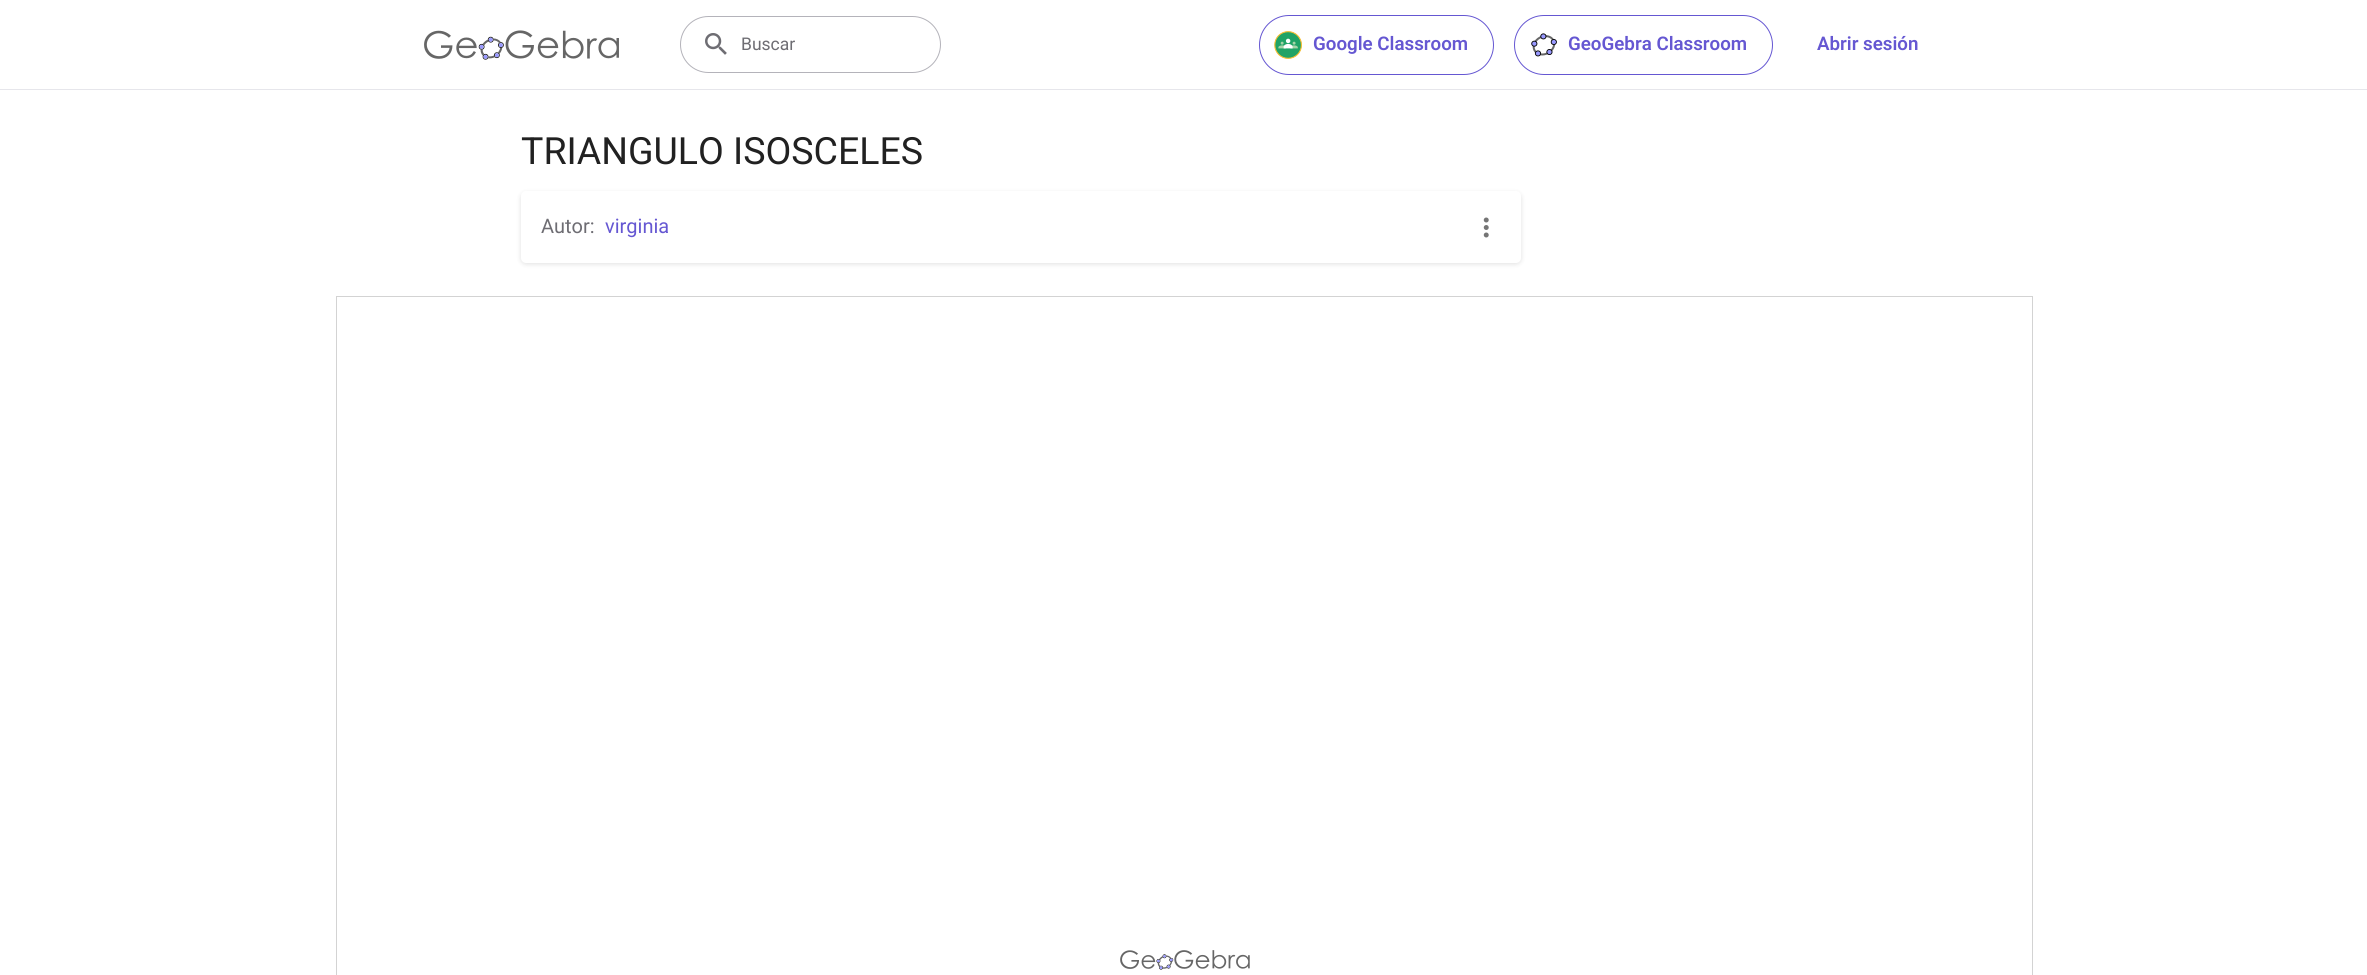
#include <cairo.h>
#include <math.h>
#include <stddef.h>


static void set_color(cairo_t *cr, unsigned color) {
    cairo_set_source_rgb(cr, (color >> 16) / 255.0, (color >> 8 & 255) / 255.0, (color & 255) / 255.0);
}

static void draw_text(cairo_t *cr, double x, double y, const char *s, const char *family, double size, int italic, int bold, unsigned color) {
    cairo_select_font_face(cr, family, italic ? CAIRO_FONT_SLANT_ITALIC : CAIRO_FONT_SLANT_NORMAL,
        bold ? CAIRO_FONT_WEIGHT_BOLD : CAIRO_FONT_WEIGHT_NORMAL);
    cairo_set_font_size(cr, size);
    set_color(cr, color);
    cairo_move_to(cr, x, y);
    cairo_show_text(cr, s);
}

static void fill_rect(cairo_t *cr, double x, double y, double w, double h, unsigned color) {
    set_color(cr, color);
    cairo_rectangle(cr, x, y, w, h);
    cairo_fill(cr);
}

static void rounded_rect(cairo_t *cr, double x, double y, double w, double h, double r) {
    cairo_new_sub_path(cr);
    cairo_arc(cr, x + w - r, y + h - r, r, 0, M_PI / 2);
    cairo_arc(cr, x + r, y + h - r, r, M_PI / 2, M_PI);
    cairo_arc(cr, x + r, y + r, r, M_PI, 1.5 * M_PI);
    cairo_arc(cr, x + w - r, y + r, r, 1.5 * M_PI, 2 * M_PI);
    cairo_close_path(cr);
}

static void draw_shadow(cairo_t *cr, double x, double y, double w, double h, double r, double blur, double alpha) {
    cairo_push_group_with_content(cr, CAIRO_CONTENT_ALPHA);
    cairo_set_operator(cr, CAIRO_OPERATOR_SOURCE);
    for (int i = 15; i >= -15 && fmin(w, h) + blur * i / 3 > 0; i -= 2) {
        double e = blur * i / 6;
        cairo_set_source_rgba(cr, 0, 0, 0, alpha * erfc((i - 1) / 8.5) / 2);
        rounded_rect(cr, x - e, y - e, w + 2 * e, h + 2 * e, fmax(0, fmin(r + e + blur * .6, fmin(w, h) / 2 + e)));
        cairo_fill(cr);
    }
    cairo_pattern_t *soft = cairo_pop_group(cr);
    cairo_mask(cr, soft);
    cairo_pattern_destroy(soft);
}

static void draw_image(cairo_t *cr, const char *path, double x, double y, double w, double h) {
    cairo_surface_t *image = cairo_image_surface_create_from_png(path);
    cairo_save(cr);
    cairo_set_source_surface(cr, image, x, y);
    cairo_rectangle(cr, x, y, w, h);
    cairo_fill(cr);
    cairo_restore(cr);
    cairo_surface_destroy(image);
}

int main(void) {
    cairo_surface_t *surface = cairo_image_surface_create(CAIRO_FORMAT_RGB24, 2367, 975);
    cairo_t *cr = cairo_create(surface);
    cairo_font_options_t *options = cairo_font_options_create();
    cairo_font_options_set_hint_metrics(options, CAIRO_HINT_METRICS_OFF);
    cairo_font_options_set_hint_style(options, CAIRO_HINT_STYLE_NONE);
    cairo_set_font_options(cr, options);
    cairo_set_miter_limit(cr, 4);
    set_color(cr, 0xFFFFFF);
    cairo_paint(cr);
    fill_rect(cr, 0, 89, 2367, 1, 0xE6E6EB);
    draw_image(cr, "assets/img1.png", 424, 30, 195, 30);
    rounded_rect(cr, 680.5, 16.5, 260, 56, 28);
    set_color(cr, 0xB4B3BA);
    cairo_set_line_width(cr, 1);
    cairo_stroke(cr);
    draw_image(cr, "assets/img2.png", 705, 33, 22, 22);
    draw_text(cr, 741, 50, "Buscar", "Roboto", 17.5, 0, 0, 0x6E6D73);
    rounded_rect(cr, 1259.5, 15.5, 234, 59, 29.5);
    set_color(cr, 0x6557D2);
    cairo_stroke(cr);
    draw_image(cr, "assets/img3.png", 1274, 31, 28, 28);
    draw_text(cr, 1313, 50, "Google Classroom", "Roboto SemiBold", 18.75, 0, 0, 0x6557D2);
    rounded_rect(cr, 1514.5, 15.5, 258, 59, 29.5);
    cairo_stroke(cr);
    draw_image(cr, "assets/img4.png", 1531, 33, 26, 24);
    draw_text(cr, 1568, 50, "GeoGebra Classroom", "Roboto SemiBold", 18.75, 0, 0, 0x6557D2);
    draw_text(cr, 1817, 50, "Abrir sesión", "Roboto SemiBold", 18.75, 0, 0, 0x6557D2);
    draw_text(cr, 521, 164, "TRIANGULO ISOSCELES", "Roboto", 37.5, 0, 0, 0x212121);
    set_color(cr, 0x1C1C1F);
    draw_shadow(cr, 521, 193, 1000, 71, 5, 2.5, 0.14);
    set_color(cr, 0xFFFFFF);
    rounded_rect(cr, 521, 191, 1000, 72, 5);
    cairo_fill(cr);
    draw_text(cr, 541, 233, "Autor:", "Roboto", 20, 0, 0, 0x6E6D73);
    draw_text(cr, 605, 233, "virginia", "Roboto", 20, 0, 0, 0x6557D2);
    draw_image(cr, "assets/img5.png", 1483, 217, 6, 21);
    draw_image(cr, "assets/img6.png", 1120, 950, 130, 20);
    cairo_rectangle(cr, 336.5, 296.5, 1696, 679);
    set_color(cr, 0xD3D3D3);
    cairo_stroke(cr);
    cairo_surface_write_to_png(surface, "output.png");
    cairo_font_options_destroy(options);
    cairo_destroy(cr);
    cairo_surface_destroy(surface);
    return 0;
}
